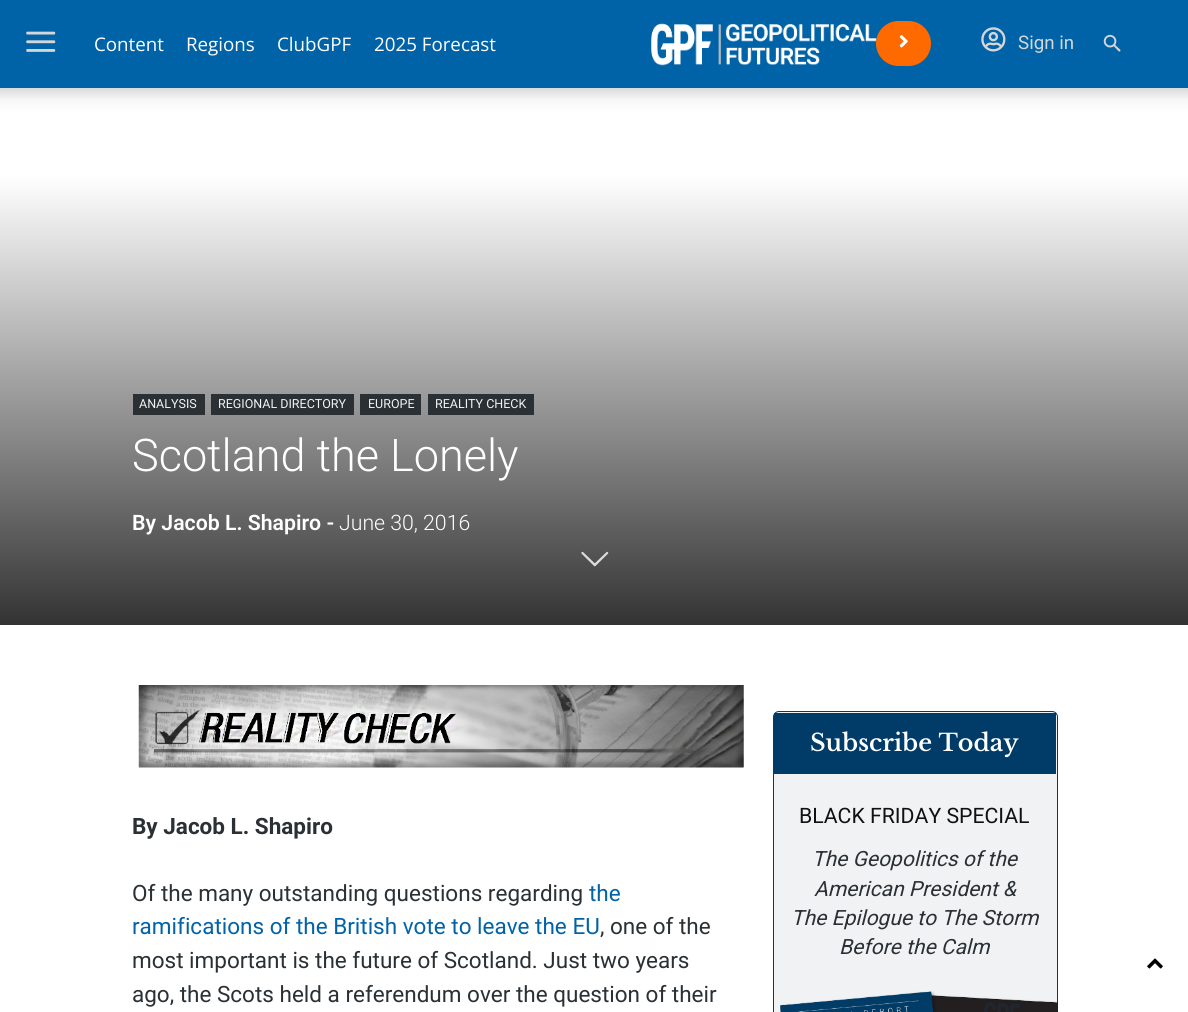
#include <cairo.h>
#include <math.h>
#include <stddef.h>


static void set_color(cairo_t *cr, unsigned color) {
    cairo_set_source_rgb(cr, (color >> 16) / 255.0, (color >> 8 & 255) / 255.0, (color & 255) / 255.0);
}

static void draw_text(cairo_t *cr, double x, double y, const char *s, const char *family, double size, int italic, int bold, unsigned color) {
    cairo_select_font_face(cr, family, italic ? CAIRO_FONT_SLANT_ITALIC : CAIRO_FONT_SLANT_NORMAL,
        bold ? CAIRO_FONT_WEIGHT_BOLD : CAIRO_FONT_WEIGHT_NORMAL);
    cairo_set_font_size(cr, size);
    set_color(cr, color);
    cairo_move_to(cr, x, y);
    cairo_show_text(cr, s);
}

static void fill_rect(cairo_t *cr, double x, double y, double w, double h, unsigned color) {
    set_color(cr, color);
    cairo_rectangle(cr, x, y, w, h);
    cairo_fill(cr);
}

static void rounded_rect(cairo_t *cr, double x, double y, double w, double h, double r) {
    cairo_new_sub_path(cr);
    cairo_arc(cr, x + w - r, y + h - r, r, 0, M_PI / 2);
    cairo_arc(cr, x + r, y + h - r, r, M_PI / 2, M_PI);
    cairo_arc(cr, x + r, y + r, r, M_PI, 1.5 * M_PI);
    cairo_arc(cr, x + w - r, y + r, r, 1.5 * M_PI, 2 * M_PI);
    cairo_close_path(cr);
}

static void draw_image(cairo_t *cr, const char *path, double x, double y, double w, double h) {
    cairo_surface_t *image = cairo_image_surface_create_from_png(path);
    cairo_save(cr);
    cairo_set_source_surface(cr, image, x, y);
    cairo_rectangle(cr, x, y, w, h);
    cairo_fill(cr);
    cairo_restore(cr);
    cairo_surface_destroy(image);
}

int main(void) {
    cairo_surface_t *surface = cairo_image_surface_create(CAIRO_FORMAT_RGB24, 1188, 1012);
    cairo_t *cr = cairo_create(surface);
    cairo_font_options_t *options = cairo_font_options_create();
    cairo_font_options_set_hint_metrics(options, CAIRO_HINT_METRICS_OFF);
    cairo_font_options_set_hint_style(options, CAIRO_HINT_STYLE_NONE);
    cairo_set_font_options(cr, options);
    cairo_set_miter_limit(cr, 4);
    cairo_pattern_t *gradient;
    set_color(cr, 0xFFFFFF);
    cairo_paint(cr);
    fill_rect(cr, 0, 0, 1188, 88, 0x0062A7);
    draw_image(cr, "assets/img1.png", 26, 31, 30, 21);
    draw_text(cr, 94, 51, "Content", "Open Sans", 18.75, 0, 0, 0xFFFFFF);
    draw_text(cr, 186, 51, "Regions", "Open Sans", 18.75, 0, 0, 0xFFFFFF);
    draw_text(cr, 277, 51, "ClubGPF", "Open Sans", 18.75, 0, 0, 0xFFFFFF);
    draw_text(cr, 374, 51, "2025 Forecast", "Open Sans", 18.75, 0, 0, 0xFFFFFF);
    draw_image(cr, "assets/img2.png", 651, 23, 226, 43);
    set_color(cr, 0xFF6A00);
    rounded_rect(cr, 876, 21, 55, 45, 22.5);
    cairo_fill(cr);
    draw_image(cr, "assets/img3.png", 899, 35, 9, 13);
    draw_image(cr, "assets/img4.png", 981, 27, 25, 25);
    draw_text(cr, 1018, 49, "Sign in", "Roboto", 18.75, 0, 0, 0xD3D7DA);
    draw_image(cr, "assets/img5.png", 1103, 34, 18, 18);
    gradient = cairo_pattern_create_linear(594, 0, 594, 625);
    cairo_pattern_add_color_stop_rgba(gradient, 0, 0.702, 0.702, 0.702, 1);
    cairo_pattern_add_color_stop_rgba(gradient, 0.18, 1, 1, 1, 1);
    cairo_pattern_add_color_stop_rgba(gradient, 0.28, 1, 1, 1, 1);
    cairo_pattern_add_color_stop_rgba(gradient, 1, 0.2, 0.2, 0.2, 1);
    cairo_set_source(cr, gradient);
    cairo_pattern_destroy(gradient);
    cairo_rectangle(cr, 0, 88, 1188, 537);
    cairo_fill(cr);
    draw_image(cr, "assets/img6.png", 0, 88, 1188, 10);
    fill_rect(cr, 133, 394, 72, 21, 0x2A3034);
    draw_text(cr, 139, 408, "ANALYSIS", "Roboto", 12.5, 0, 0, 0xF0F2F3);
    fill_rect(cr, 211, 394, 143, 21, 0x2A3034);
    draw_text(cr, 218, 408, "REGIONAL DIRECTORY", "Roboto", 12.5, 0, 0, 0xF0F2F3);
    fill_rect(cr, 360, 394, 61, 21, 0x2A3034);
    draw_text(cr, 368, 408, "EUROPE", "Roboto", 12.5, 0, 0, 0xF0F2F3);
    fill_rect(cr, 428, 394, 106, 21, 0x2A3034);
    draw_text(cr, 435, 408, "REALITY CHECK", "Roboto", 12.5, 0, 0, 0xF0F2F3);
    draw_text(cr, 132, 471, "Scotland the Lonely", "Roboto Light", 45, 0, 0, 0xFFFFFF);
    draw_text(cr, 132, 530, "By Jacob L. Shapiro -", "Roboto SemiBold", 21.25, 0, 0, 0xFFFFFF);
    draw_text(cr, 339, 530, "June 30, 2016", "Roboto Light", 21.25, 0, 0, 0xFFFFFF);
    draw_image(cr, "assets/img7.png", 581, 551, 28, 16);
    draw_image(cr, "assets/img8.png", 138, 685, 606, 83);
    draw_text(cr, 132, 834, "By Jacob L. Shapiro", "Roboto", 22.5, 0, 1, 0x2A3034);
    draw_text(cr, 132, 901, "Of the many outstanding questions regarding", "Roboto", 22.5, 0, 0, 0x2A3034);
    draw_text(cr, 589, 901, "the", "Roboto", 22.5, 0, 0, 0x0062A7);
    draw_text(cr, 132, 934, "ramifications of the British vote to leave the EU", "Roboto", 22.5, 0, 0, 0x0062A7);
    draw_text(cr, 600, 934, ", one of the", "Roboto", 22.5, 0, 0, 0x2A3034);
    draw_text(cr, 132, 968, "most important is the future of Scotland. Just two years", "Roboto", 22.5, 0, 0, 0x2A3034);
    draw_text(cr, 132, 1002, "ago, the Scots held a referendum over the question of their", "Roboto", 22.5, 0, 0, 0x2A3034);
    set_color(cr, 0xF0F2F3);
    rounded_rect(cr, 773.5, 711.5, 284, 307, 5.5);
    cairo_fill_preserve(cr);
    set_color(cr, 0x003C67);
    cairo_set_line_width(cr, 1);
    cairo_stroke(cr);
    fill_rect(cr, 774, 713, 282, 61, 0x003C67);
    draw_text(cr, 810, 751, "Subscribe Today", "Libre Baskerville SemiBold", 23.75, 0, 0, 0xFFFFFF);
    draw_text(cr, 799, 823, "BLACK FRIDAY SPECIAL", "Roboto", 21.25, 0, 0, 0x111111);
    draw_text(cr, 812, 866, "The Geopolitics of the", "Roboto", 21, 1, 0, 0x2A3034);
    draw_text(cr, 814, 896, "American President &", "Roboto", 21, 1, 0, 0x2A3034);
    draw_text(cr, 791, 925, "The Epilogue to The Storm", "Roboto", 21, 1, 0, 0x2A3034);
    draw_text(cr, 839, 954, "Before the Calm", "Roboto", 21, 1, 0, 0x2A3034);
    draw_image(cr, "assets/img9.png", 780, 991, 278, 21);
    draw_image(cr, "assets/img10.png", 1147, 958, 16, 11);
    cairo_surface_write_to_png(surface, "output.png");
    cairo_font_options_destroy(options);
    cairo_destroy(cr);
    cairo_surface_destroy(surface);
    return 0;
}
